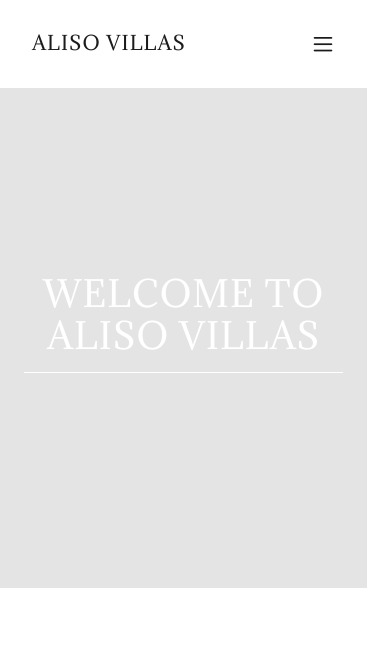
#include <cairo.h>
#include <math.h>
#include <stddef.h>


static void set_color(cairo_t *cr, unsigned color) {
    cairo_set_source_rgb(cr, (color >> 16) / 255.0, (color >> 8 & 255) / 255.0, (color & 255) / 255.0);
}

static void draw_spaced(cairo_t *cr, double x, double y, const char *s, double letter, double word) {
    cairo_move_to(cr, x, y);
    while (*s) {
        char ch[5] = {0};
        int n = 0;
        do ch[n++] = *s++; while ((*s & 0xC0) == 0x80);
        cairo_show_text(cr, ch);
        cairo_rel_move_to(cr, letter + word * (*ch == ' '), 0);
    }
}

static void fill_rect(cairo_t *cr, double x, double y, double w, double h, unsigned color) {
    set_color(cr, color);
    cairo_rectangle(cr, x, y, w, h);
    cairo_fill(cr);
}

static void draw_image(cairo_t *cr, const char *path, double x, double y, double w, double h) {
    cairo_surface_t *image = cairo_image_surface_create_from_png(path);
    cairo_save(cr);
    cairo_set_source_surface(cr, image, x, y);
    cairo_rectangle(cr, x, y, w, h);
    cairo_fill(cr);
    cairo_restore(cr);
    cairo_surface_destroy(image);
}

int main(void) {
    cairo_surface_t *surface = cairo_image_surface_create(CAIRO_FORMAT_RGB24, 367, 650);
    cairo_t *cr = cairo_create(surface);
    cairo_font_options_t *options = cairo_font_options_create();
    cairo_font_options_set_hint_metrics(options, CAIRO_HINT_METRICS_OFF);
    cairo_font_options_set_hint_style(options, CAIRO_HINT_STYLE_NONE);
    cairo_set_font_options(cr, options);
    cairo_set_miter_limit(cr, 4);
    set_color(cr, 0xFFFFFF);
    cairo_paint(cr);
    cairo_select_font_face(cr, "Adamina", CAIRO_FONT_SLANT_NORMAL, CAIRO_FONT_WEIGHT_NORMAL);
    cairo_set_font_size(cr, 19);
    set_color(cr, 0x1B1B1B);
    draw_spaced(cr, 32, 50, "ALISO VILLAS", 1, 0);
    draw_image(cr, "assets/img1.png", 313, 37, 20, 15);
    fill_rect(cr, 0, 88, 367, 500, 0xE4E4E4);
    fill_rect(cr, 24, 372, 319, 1, 0xFFFFFF);
    cairo_set_font_size(cr, 35);
    draw_spaced(cr, 43, 307, "WELCOME TO", 1, 0);
    draw_spaced(cr, 47, 349, "ALISO VILLAS", 1, 0);
    cairo_surface_write_to_png(surface, "output.png");
    cairo_font_options_destroy(options);
    cairo_destroy(cr);
    cairo_surface_destroy(surface);
    return 0;
}
